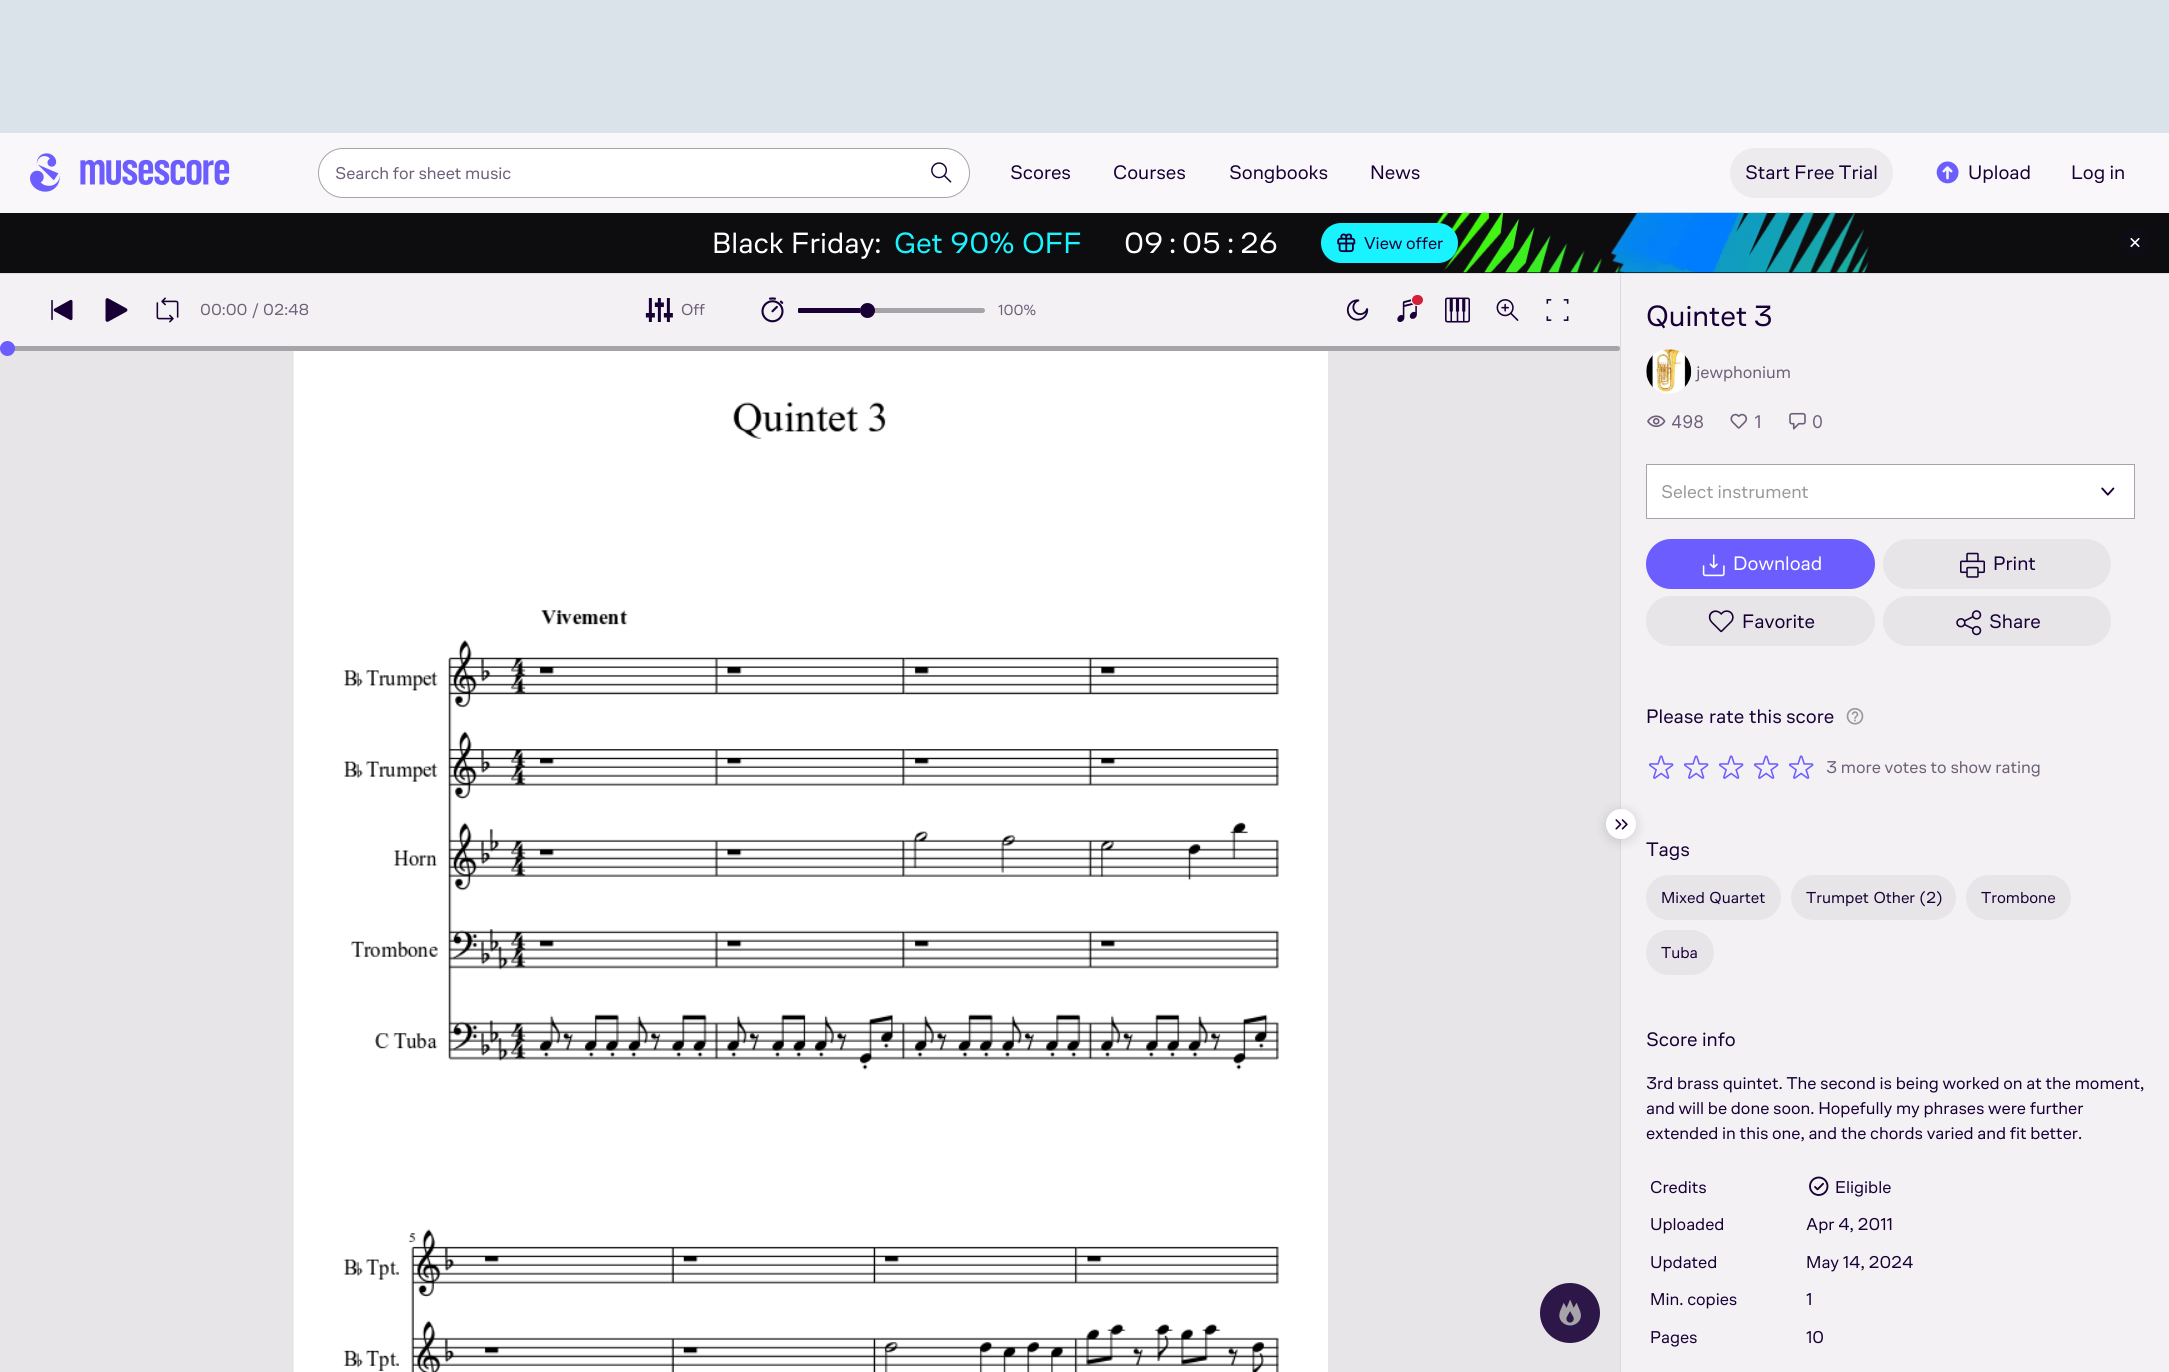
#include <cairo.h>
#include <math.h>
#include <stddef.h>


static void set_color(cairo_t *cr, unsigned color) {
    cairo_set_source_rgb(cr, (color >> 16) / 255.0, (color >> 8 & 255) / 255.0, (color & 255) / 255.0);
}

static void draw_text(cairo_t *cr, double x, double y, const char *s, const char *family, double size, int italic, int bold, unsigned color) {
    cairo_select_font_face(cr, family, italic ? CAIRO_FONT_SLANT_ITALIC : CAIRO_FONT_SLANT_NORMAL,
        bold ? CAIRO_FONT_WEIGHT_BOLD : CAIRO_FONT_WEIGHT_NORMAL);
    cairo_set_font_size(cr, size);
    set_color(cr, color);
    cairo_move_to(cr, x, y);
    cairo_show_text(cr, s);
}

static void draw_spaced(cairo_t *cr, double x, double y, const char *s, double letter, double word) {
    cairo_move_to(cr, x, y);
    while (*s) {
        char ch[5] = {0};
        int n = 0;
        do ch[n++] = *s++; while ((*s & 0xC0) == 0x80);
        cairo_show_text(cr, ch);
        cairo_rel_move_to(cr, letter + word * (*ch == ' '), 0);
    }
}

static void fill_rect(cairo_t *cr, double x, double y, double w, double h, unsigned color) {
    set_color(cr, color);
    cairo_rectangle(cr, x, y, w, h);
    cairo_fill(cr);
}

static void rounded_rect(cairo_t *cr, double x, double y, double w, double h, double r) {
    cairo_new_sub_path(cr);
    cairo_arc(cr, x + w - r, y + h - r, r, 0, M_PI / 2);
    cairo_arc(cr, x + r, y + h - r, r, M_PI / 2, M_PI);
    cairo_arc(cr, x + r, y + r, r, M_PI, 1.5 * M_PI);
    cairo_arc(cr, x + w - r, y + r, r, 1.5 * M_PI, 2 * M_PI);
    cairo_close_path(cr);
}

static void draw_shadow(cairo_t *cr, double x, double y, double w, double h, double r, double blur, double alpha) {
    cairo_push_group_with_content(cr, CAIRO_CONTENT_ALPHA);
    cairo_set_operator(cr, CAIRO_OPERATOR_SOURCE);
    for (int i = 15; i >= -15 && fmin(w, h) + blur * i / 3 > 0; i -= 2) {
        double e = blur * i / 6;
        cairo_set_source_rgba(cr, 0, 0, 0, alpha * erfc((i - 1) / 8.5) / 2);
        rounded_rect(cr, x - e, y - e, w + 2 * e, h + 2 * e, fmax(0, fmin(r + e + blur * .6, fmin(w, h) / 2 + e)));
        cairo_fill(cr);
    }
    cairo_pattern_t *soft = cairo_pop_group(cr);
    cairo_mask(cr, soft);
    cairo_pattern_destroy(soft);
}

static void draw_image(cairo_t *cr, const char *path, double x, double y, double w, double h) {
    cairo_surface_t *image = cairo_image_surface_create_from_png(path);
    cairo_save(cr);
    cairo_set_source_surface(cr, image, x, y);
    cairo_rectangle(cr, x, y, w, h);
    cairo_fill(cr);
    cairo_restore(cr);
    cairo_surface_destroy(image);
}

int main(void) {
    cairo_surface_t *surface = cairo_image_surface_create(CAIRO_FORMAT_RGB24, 2169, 1372);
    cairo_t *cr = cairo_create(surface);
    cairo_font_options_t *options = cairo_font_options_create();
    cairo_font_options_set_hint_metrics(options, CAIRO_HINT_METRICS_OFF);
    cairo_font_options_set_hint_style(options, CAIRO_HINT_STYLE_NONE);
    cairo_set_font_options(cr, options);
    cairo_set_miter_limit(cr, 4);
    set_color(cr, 0xF9F7FA);
    cairo_paint(cr);
    fill_rect(cr, 0, 273, 2169, 1, 0xE2DEE6);
    fill_rect(cr, 0, 0, 2169, 133, 0xDAE3E9);
    draw_image(cr, "assets/img1.png", 30, 153, 200, 39);
    set_color(cr, 0xFFFFFF);
    rounded_rect(cr, 318.5, 148.5, 651, 49, 24.5);
    cairo_fill_preserve(cr);
    set_color(cr, 0xA7A4A9);
    cairo_set_line_width(cr, 1);
    cairo_stroke(cr);
    draw_text(cr, 335, 179, "Search for sheet music", "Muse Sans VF", 17.5, 0, 0, 0x6E5F79);
    draw_image(cr, "assets/img2.png", 931, 162, 21, 21);
    draw_text(cr, 1010, 179, "Scores", "Muse Sans VF", 20, 0, 0, 0x180036);
    draw_text(cr, 1113, 179, "Courses", "Muse Sans VF", 20, 0, 0, 0x180036);
    draw_text(cr, 1229, 179, "Songbooks", "Muse Sans VF", 20, 0, 0, 0x180036);
    draw_text(cr, 1370, 179, "News", "Muse Sans VF", 20, 0, 0, 0x180036);
    set_color(cr, 0xEDEBEE);
    rounded_rect(cr, 1730, 148, 163, 50, 25);
    cairo_fill(cr);
    draw_text(cr, 1745, 179, "Start Free Trial", "Muse Sans VF", 20, 0, 0, 0x180036);
    draw_image(cr, "assets/img3.png", 1936, 161, 23, 23);
    draw_text(cr, 1968, 179, "Upload", "Muse Sans VF", 20, 0, 0, 0x180036);
    draw_text(cr, 2071, 179, "Log in", "Muse Sans VF", 20, 0, 0, 0x180036);
    fill_rect(cr, 0, 213, 2169, 60, 0x0D0D10);
    draw_text(cr, 712, 253, "Black", "Muse Sans VF", 30, 0, 0, 0xFFFFFF);
    draw_text(cr, 791, 253, "Friday:", "Muse Sans VF", 30, 0, 0, 0xFFFFFF);
    draw_text(cr, 894, 253, "Get", "Muse Sans VF", 30, 0, 0, 0x19F3FF);
    draw_text(cr, 950, 253, "90%", "Muse Sans VF", 30, 0, 0, 0x19F3FF);
    draw_text(cr, 1022, 253, "OFF", "Muse Sans VF", 30, 0, 0, 0x19F3FF);
    draw_text(cr, 1124, 253, "09", "Muse Sans VF", 30, 0, 0, 0xFFFFFF);
    draw_text(cr, 1169, 253, ":", "Muse Sans VF", 30, 0, 0, 0xFFFFFF);
    draw_text(cr, 1182, 253, "05", "Muse Sans VF", 30, 0, 0, 0xFFFFFF);
    draw_text(cr, 1227, 253, ":", "Muse Sans VF", 30, 0, 0, 0xFFFFFF);
    draw_text(cr, 1240, 253, "26", "Muse Sans VF", 30, 0, 0, 0xFFFFFF);
    draw_image(cr, "assets/img5.png", 1436, 212, 433, 61);
    set_color(cr, 0x19F3FF);
    rounded_rect(cr, 1321, 223, 137, 40, 20);
    cairo_fill(cr);
    draw_image(cr, "assets/img4.png", 1337, 233, 19, 20);
    draw_text(cr, 1364, 249, "View offer", "Muse Sans VF", 17.5, 0, 0, 0x180036);
    set_color(cr, 0x0E0C14);
    cairo_new_path(cr);
    cairo_arc(cr, 2135, 243, 15, 0, 2 * M_PI);
    cairo_fill(cr);
    draw_image(cr, "assets/img6.png", 2130, 238, 10, 9);
    fill_rect(cr, 0, 346, 1620, 1026, 0xE7E5E8);
    set_color(cr, 0xA7A4A9);
    rounded_rect(cr, 0, 346, 1620, 5, 2.5);
    cairo_fill(cr);
    fill_rect(cr, 0, 274, 1620, 72, 0xF3F1F4);
    set_color(cr, 0x6B5DFE);
    cairo_arc(cr, 7.5, 348.5, 7.5, 0, 2 * M_PI);
    cairo_fill(cr);
    draw_image(cr, "assets/img7.png", 51, 299, 22, 22);
    draw_image(cr, "assets/img8.png", 105, 298, 23, 24);
    draw_image(cr, "assets/img9.png", 156, 297, 23, 26);
    draw_text(cr, 200, 315, "00:00 / 02:48", "Muse Sans VF", 16.25, 0, 0, 0x6E5F79);
    draw_image(cr, "assets/img10.png", 645, 298, 28, 24);
    draw_text(cr, 681, 315, "Off", "Muse Sans VF", 16.25, 0, 0, 0x6E5F79);
    draw_image(cr, "assets/img11.png", 761, 297, 23, 26);
    set_color(cr, 0xA7A4A9);
    rounded_rect(cr, 798, 308, 187, 5, 2.5);
    cairo_fill(cr);
    set_color(cr, 0x180036);
    cairo_new_path(cr);
    cairo_move_to(cr, 799, 308);
    cairo_line_to(cr, 860, 308);
    cairo_line_to(cr, 860, 313);
    cairo_line_to(cr, 799, 313);
    cairo_curve_to(cr, 798.5, 313, 798, 312.5, 798, 312);
    cairo_line_to(cr, 798, 309);
    cairo_curve_to(cr, 798, 308.5, 798.5, 308, 799, 308);
    cairo_close_path(cr);
    cairo_fill(cr);
    cairo_arc(cr, 867.5, 310.5, 7.5, 0, 2 * M_PI);
    cairo_fill(cr);
    draw_text(cr, 998, 315, "100%", "Muse Sans VF", 15, 0, 0, 0x6E5F79);
    draw_image(cr, "assets/img12.png", 1346, 299, 23, 22);
    draw_image(cr, "assets/img13.png", 1397, 299, 20, 23);
    set_color(cr, 0xD32139);
    rounded_rect(cr, 1411.5, 294.5, 12, 11, 5.5);
    cairo_fill_preserve(cr);
    set_color(cr, 0xF9F7FA);
    cairo_stroke(cr);
    draw_image(cr, "assets/img14.png", 1445, 297, 25, 26);
    draw_image(cr, "assets/img15.png", 1496, 299, 23, 22);
    draw_image(cr, "assets/img16.png", 1546, 299, 23, 22);
    fill_rect(cr, 1279, 351, 49, 1021, 0xFFFFFF);
    draw_image(cr, "assets/img17.png", 293, 351, 986, 1021);
    set_color(cr, 0x2D1748);
    cairo_arc(cr, 1570, 1313, 30, 0, 2 * M_PI);
    cairo_fill(cr);
    draw_image(cr, "assets/img18.png", 1559, 1299, 22, 27);
    fill_rect(cr, 1621, 274, 548, 1098, 0xF3F1F4);
    fill_rect(cr, 1620, 274, 1, 1098, 0xDDD9E1);
    set_color(cr, 0x000000);
    draw_shadow(cr, 1606, 811, 30, 30, 15, 6, 0.14);
    set_color(cr, 0xFFFFFF);
    cairo_arc(cr, 1621, 824, 15, 0, 2 * M_PI);
    cairo_fill(cr);
    draw_image(cr, "assets/img19.png", 1615, 819, 13, 11);
    draw_text(cr, 1646, 326, "Quintet 3", "Muse Sans VF", 30, 0, 0, 0x180036);
    draw_image(cr, "assets/img20.png", 1646, 349, 46, 45);
    draw_text(cr, 1696, 378, "jewphonium", "Muse Sans VF", 17.5, 0, 0, 0x6E5F79);
    draw_image(cr, "assets/img21.png", 1647, 415, 19, 13);
    draw_text(cr, 1671, 428, "498", "Inter", 17.5, 0, 0, 0x6E5F79);
    draw_image(cr, "assets/img22.png", 1730, 413, 18, 16);
    draw_text(cr, 1754, 428, "1", "Inter", 17.5, 0, 0, 0x6E5F79);
    draw_image(cr, "assets/img23.png", 1789, 412, 17, 18);
    draw_text(cr, 1812, 428, "0", "Inter", 17.5, 0, 0, 0x6E5F79);
    set_color(cr, 0xFFFFFF);
    cairo_rectangle(cr, 1646.5, 464.5, 488, 54);
    cairo_fill_preserve(cr);
    set_color(cr, 0xA7A4A9);
    cairo_stroke(cr);
    draw_text(cr, 1661, 498, "Select instrument", "Muse Sans VF", 18.75, 0, 0, 0x9B989D);
    draw_image(cr, "assets/img24.png", 2101, 487, 14, 9);
    set_color(cr, 0x6B5DFE);
    rounded_rect(cr, 1646, 539, 229, 50, 25);
    cairo_fill(cr);
    draw_image(cr, "assets/img25.png", 1702, 554, 23, 23);
    draw_text(cr, 1733, 570, "Download", "Muse Sans VF", 20, 0, 0, 0xFFFFFF);
    set_color(cr, 0xE7E5E8);
    rounded_rect(cr, 1883, 539, 228, 50, 25);
    cairo_fill(cr);
    draw_image(cr, "assets/img26.png", 1960, 552, 25, 26);
    draw_text(cr, 1993, 570, "Print", "Muse Sans VF", 20, 0, 0, 0x180036);
    set_color(cr, 0xE7E5E8);
    rounded_rect(cr, 1646, 596, 229, 50, 25);
    cairo_fill(cr);
    draw_image(cr, "assets/img27.png", 1708, 610, 26, 23);
    draw_text(cr, 1742, 628, "Favorite", "Muse Sans VF", 20, 0, 0, 0x180036);
    set_color(cr, 0xE7E5E8);
    rounded_rect(cr, 1883, 596, 228, 50, 25);
    cairo_fill(cr);
    draw_image(cr, "assets/img28.png", 1956, 610, 26, 26);
    draw_text(cr, 1989, 628, "Share", "Muse Sans VF", 20, 0, 0, 0x180036);
    draw_text(cr, 1646, 723, "Please", "Muse Sans VF", 20, 0, 0, 0x180036);
    draw_text(cr, 1709, 723, "rate", "Muse Sans VF", 20, 0, 0, 0x180036);
    draw_text(cr, 1749, 723, "this", "Muse Sans VF", 20, 0, 0, 0x180036);
    draw_text(cr, 1786, 723, "score", "Muse Sans VF", 20, 0, 0, 0x180036);
    draw_image(cr, "assets/img29.png", 1846, 708, 18, 17);
    draw_image(cr, "assets/img30.png", 1648, 755, 26, 24);
    draw_image(cr, "assets/img30.png", 1683, 755, 26, 24);
    draw_image(cr, "assets/img30.png", 1718, 755, 26, 24);
    draw_image(cr, "assets/img30.png", 1753, 755, 26, 24);
    draw_image(cr, "assets/img30.png", 1788, 755, 26, 24);
    draw_text(cr, 1826, 773, "3 more votes to show rating", "Muse Sans VF", 17.5, 0, 0, 0x6E5F79);
    draw_text(cr, 1646, 856, "Tags", "Muse Sans VF", 20, 0, 0, 0x180036);
    set_color(cr, 0xE7E5E8);
    rounded_rect(cr, 1646, 875, 135, 45, 22.5);
    cairo_fill(cr);
    cairo_set_font_size(cr, 16.25);
    set_color(cr, 0x180036);
    draw_spaced(cr, 1661, 903, "Mixed Quartet", 0, 1);
    set_color(cr, 0xE7E5E8);
    rounded_rect(cr, 1791, 875, 165, 45, 22.5);
    cairo_fill(cr);
    set_color(cr, 0x180036);
    draw_spaced(cr, 1806, 903, "Trumpet Other (2)", 0, 1);
    set_color(cr, 0xE7E5E8);
    rounded_rect(cr, 1966, 875, 105, 45, 22.5);
    cairo_fill(cr);
    draw_text(cr, 1981, 903, "Trombone", "Muse Sans VF", 16.25, 0, 0, 0x180036);
    set_color(cr, 0xE7E5E8);
    rounded_rect(cr, 1646, 930, 68, 45, 22.5);
    cairo_fill(cr);
    draw_text(cr, 1661, 958, "Tuba", "Muse Sans VF", 16.25, 0, 0, 0x180036);
    draw_text(cr, 1646, 1046, "Score", "Muse Sans VF", 20, 0, 0, 0x180036);
    draw_text(cr, 1702, 1046, "info", "Muse Sans VF", 20, 0, 0, 0x180036);
    draw_text(cr, 1646, 1089, "3rd brass quintet. The second is being worked on at the moment,", "Muse Sans VF", 17.5, 0, 0, 0x180036);
    draw_text(cr, 1646, 1114, "and will be done soon. Hopefully my phrases were further", "Muse Sans VF", 17.5, 0, 0, 0x180036);
    draw_text(cr, 1646, 1139, "extended in this one, and the chords varied and fit better.", "Muse Sans VF", 17.5, 0, 0, 0x180036);
    draw_text(cr, 1650, 1193, "Credits", "Muse Sans VF", 17.5, 0, 0, 0x180036);
    draw_image(cr, "assets/img31.png", 1809, 1176, 20, 20);
    draw_text(cr, 1835, 1193, "Eligible", "Muse Sans VF", 17.5, 0, 0, 0x180036);
    draw_text(cr, 1650, 1230, "Uploaded", "Muse Sans VF", 17.5, 0, 0, 0x180036);
    draw_text(cr, 1806, 1230, "Apr 4, 2011", "Muse Sans VF", 17.5, 0, 0, 0x180036);
    draw_text(cr, 1650, 1268, "Updated", "Muse Sans VF", 17.5, 0, 0, 0x180036);
    draw_text(cr, 1806, 1268, "May 14, 2024", "Muse Sans VF", 17.5, 0, 0, 0x180036);
    draw_text(cr, 1650, 1305, "Min. copies", "Muse Sans VF", 17.5, 0, 0, 0x180036);
    draw_text(cr, 1806, 1305, "1", "Muse Sans VF", 17.5, 0, 0, 0x180036);
    draw_text(cr, 1650, 1343, "Pages", "Muse Sans VF", 17.5, 0, 0, 0x180036);
    draw_text(cr, 1806, 1343, "10", "Muse Sans VF", 17.5, 0, 0, 0x180036);
    cairo_surface_write_to_png(surface, "output.png");
    cairo_font_options_destroy(options);
    cairo_destroy(cr);
    cairo_surface_destroy(surface);
    return 0;
}
